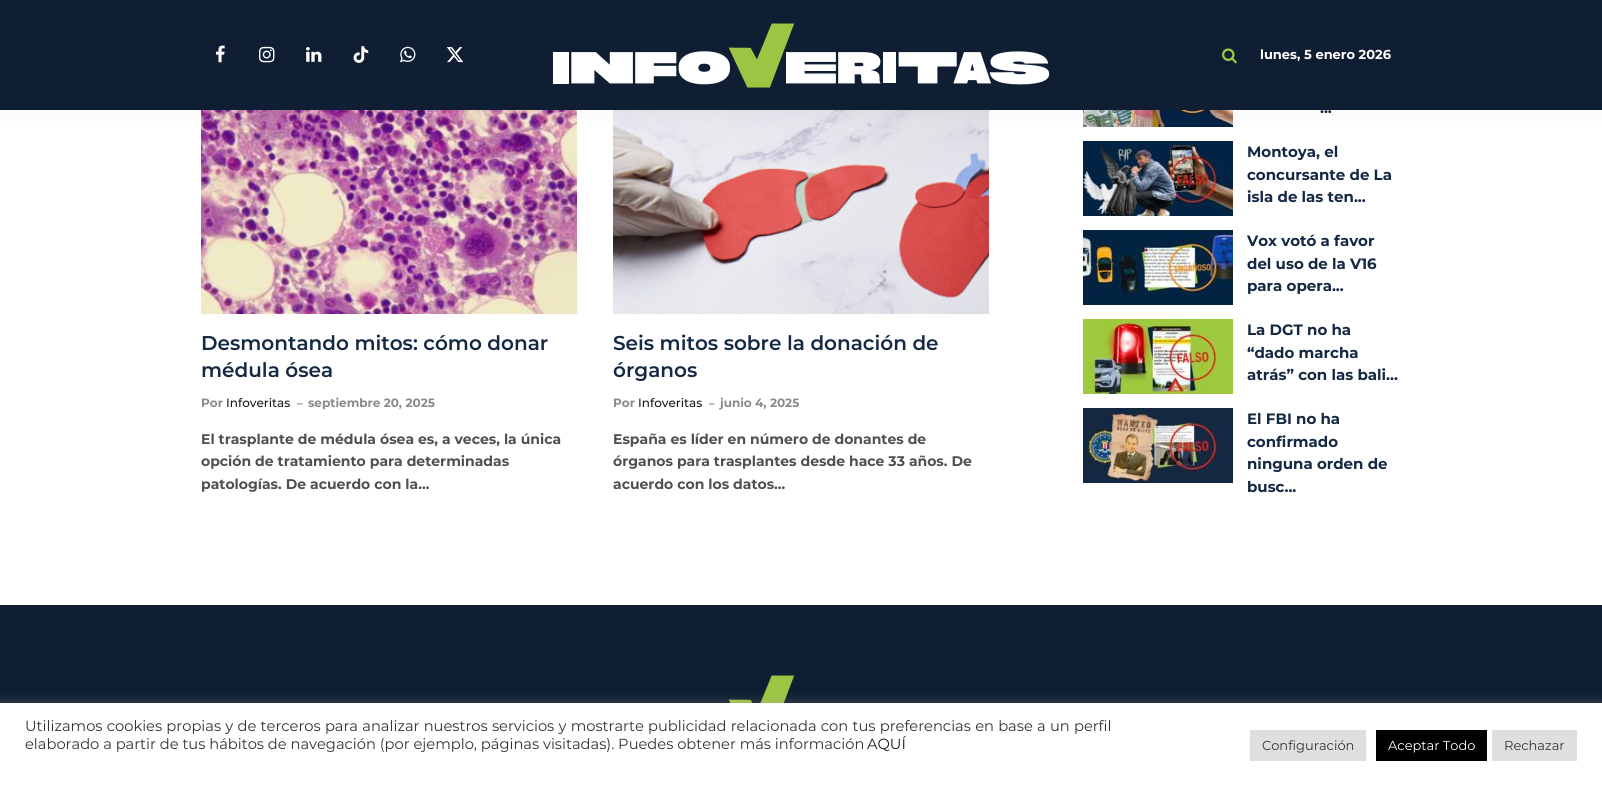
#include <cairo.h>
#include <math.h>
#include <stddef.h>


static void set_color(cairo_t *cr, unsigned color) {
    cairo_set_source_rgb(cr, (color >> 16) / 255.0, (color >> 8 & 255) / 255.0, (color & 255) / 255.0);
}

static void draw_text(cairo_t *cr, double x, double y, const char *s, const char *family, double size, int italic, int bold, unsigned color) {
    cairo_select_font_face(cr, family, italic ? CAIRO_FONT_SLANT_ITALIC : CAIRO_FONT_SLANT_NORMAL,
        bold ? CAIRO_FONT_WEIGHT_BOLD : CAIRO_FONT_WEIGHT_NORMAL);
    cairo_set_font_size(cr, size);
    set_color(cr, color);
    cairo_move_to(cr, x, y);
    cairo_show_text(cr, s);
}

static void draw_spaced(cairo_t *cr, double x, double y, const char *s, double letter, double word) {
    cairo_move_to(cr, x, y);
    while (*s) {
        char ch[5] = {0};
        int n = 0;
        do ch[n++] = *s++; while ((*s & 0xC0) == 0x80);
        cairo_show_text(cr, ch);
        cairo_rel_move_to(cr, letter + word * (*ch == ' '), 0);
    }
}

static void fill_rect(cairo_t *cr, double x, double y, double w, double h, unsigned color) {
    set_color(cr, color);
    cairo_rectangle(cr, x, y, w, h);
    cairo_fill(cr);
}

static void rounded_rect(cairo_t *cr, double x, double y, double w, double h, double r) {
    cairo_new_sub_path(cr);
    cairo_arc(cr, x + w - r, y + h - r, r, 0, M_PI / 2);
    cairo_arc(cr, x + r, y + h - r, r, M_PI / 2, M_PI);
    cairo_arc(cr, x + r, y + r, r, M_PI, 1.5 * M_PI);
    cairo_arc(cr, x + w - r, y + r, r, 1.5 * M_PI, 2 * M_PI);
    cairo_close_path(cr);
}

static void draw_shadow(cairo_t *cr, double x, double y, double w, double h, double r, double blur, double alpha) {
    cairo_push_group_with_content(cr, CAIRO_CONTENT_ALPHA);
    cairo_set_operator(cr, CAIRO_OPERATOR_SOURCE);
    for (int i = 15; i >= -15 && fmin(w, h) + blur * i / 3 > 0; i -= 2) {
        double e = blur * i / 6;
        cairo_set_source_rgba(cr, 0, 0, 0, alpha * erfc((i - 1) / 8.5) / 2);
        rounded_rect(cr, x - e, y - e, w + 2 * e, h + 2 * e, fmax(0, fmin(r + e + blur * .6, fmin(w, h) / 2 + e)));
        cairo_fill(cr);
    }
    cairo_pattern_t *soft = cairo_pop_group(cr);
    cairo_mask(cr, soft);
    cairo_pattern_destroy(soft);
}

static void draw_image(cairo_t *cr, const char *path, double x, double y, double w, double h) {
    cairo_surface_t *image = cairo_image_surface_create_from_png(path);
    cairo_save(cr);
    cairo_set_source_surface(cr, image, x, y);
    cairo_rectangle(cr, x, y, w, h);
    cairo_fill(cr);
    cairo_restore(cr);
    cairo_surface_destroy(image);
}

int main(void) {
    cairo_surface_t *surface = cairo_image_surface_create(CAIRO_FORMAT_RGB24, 1602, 788);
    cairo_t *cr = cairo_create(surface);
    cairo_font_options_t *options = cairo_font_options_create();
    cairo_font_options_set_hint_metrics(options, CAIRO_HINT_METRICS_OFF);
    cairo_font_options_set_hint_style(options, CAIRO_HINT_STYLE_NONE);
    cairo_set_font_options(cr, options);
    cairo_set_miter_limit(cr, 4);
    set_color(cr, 0xFFFFFF);
    cairo_paint(cr);
    draw_image(cr, "assets/img9.png", 201, 110, 376, 204);
    draw_image(cr, "assets/img10.png", 613, 110, 376, 204);
    draw_image(cr, "assets/img11.png", 1083, 110, 150, 17);
    set_color(cr, 0x000000);
    draw_shadow(cr, 0, 0, 1602, 110, 0, 10, 0.05);
    fill_rect(cr, 0, 0, 1602, 110, 0x101E33);
    cairo_arc(cr, 220, 55, 18.5, 0, 2 * M_PI);
    set_color(cr, 0x0F1B2E);
    cairo_set_line_width(cr, 1);
    cairo_stroke(cr);
    draw_image(cr, "assets/img1.png", 215, 45, 10, 18);
    cairo_arc(cr, 267, 55, 18.5, 0, 2 * M_PI);
    cairo_stroke(cr);
    draw_image(cr, "assets/img2.png", 259, 46, 16, 17);
    cairo_arc(cr, 314, 55, 18.5, 0, 2 * M_PI);
    cairo_stroke(cr);
    draw_image(cr, "assets/img3.png", 306, 47, 16, 15);
    cairo_arc(cr, 361, 55, 18.5, 0, 2 * M_PI);
    cairo_stroke(cr);
    draw_image(cr, "assets/img4.png", 353, 46, 16, 17);
    cairo_arc(cr, 408, 55, 18.5, 0, 2 * M_PI);
    cairo_stroke(cr);
    draw_image(cr, "assets/img5.png", 400, 46, 16, 17);
    cairo_arc(cr, 455, 55, 18.5, 0, 2 * M_PI);
    cairo_stroke(cr);
    draw_image(cr, "assets/img6.png", 446, 47, 18, 16);
    draw_image(cr, "assets/img7.png", 553, 23, 497, 65);
    draw_image(cr, "assets/img8.png", 1222, 48, 15, 16);
    draw_text(cr, 1260, 59, "lunes, 5 enero 2026", "Montserrat", 13, 0, 1, 0xFFFFFF);
    draw_text(cr, 201, 350, "Desmontando mitos: cómo donar", "Montserrat SemiBold", 20, 0, 0, 0x152844);
    draw_text(cr, 201, 377, "médula ósea", "Montserrat SemiBold", 20, 0, 0, 0x152844);
    draw_text(cr, 201, 407, "Por", "Montserrat", 12, 0, 1, 0x8A8A8A);
    draw_text(cr, 226, 407, "Infoveritas", "Montserrat Medium", 12, 0, 0, 0x191919);
    draw_text(cr, 297, 407, "–", "Montserrat", 11, 0, 1, 0x8A8A8A);
    draw_text(cr, 308, 407, "septiembre 20, 2025", "Montserrat", 12, 0, 1, 0x8A8A8A);
    draw_text(cr, 201, 444, "El trasplante de médula ósea es, a veces, la única", "Montserrat", 14, 0, 1, 0x505050);
    draw_text(cr, 201, 466, "opción de tratamiento para determinadas", "Montserrat", 14, 0, 1, 0x505050);
    draw_text(cr, 201, 489, "patologías. De acuerdo con la…", "Montserrat", 14, 0, 1, 0x505050);
    draw_text(cr, 613, 350, "Seis mitos sobre la donación de", "Montserrat SemiBold", 20, 0, 0, 0x152844);
    draw_text(cr, 613, 377, "órganos", "Montserrat SemiBold", 20, 0, 0, 0x152844);
    draw_text(cr, 613, 407, "Por", "Montserrat", 12, 0, 1, 0x8A8A8A);
    draw_text(cr, 638, 407, "Infoveritas", "Montserrat Medium", 12, 0, 0, 0x191919);
    draw_text(cr, 709, 407, "–", "Montserrat", 11, 0, 1, 0x8A8A8A);
    draw_text(cr, 720, 407, "junio 4, 2025", "Montserrat", 12, 0, 1, 0x8A8A8A);
    draw_text(cr, 613, 444, "España es líder en número de donantes de", "Montserrat", 14, 0, 1, 0x505050);
    draw_text(cr, 613, 466, "órganos para trasplantes desde hace 33 años. De", "Montserrat", 14, 0, 1, 0x505050);
    draw_text(cr, 613, 489, "acuerdo con los datos…", "Montserrat", 14, 0, 1, 0x505050);
    draw_text(cr, 1320, 113, "...", "Montserrat", 15, 0, 1, 0x152844);
    draw_image(cr, "assets/img12.png", 1083, 141, 150, 75);
    draw_text(cr, 1247, 157, "Montoya, el", "Montserrat", 15, 0, 1, 0x152844);
    draw_text(cr, 1247, 180, "concursante de La", "Montserrat", 15, 0, 1, 0x152844);
    draw_text(cr, 1247, 202, "isla de las ten...", "Montserrat", 15, 0, 1, 0x152844);
    draw_image(cr, "assets/img13.png", 1083, 230, 150, 75);
    draw_text(cr, 1247, 246, "Vox votó a favor", "Montserrat", 15, 0, 1, 0x152844);
    draw_text(cr, 1247, 269, "del uso de la V16", "Montserrat", 15, 0, 1, 0x152844);
    draw_text(cr, 1247, 291, "para opera...", "Montserrat", 15, 0, 1, 0x152844);
    draw_image(cr, "assets/img14.png", 1083, 319, 150, 75);
    draw_text(cr, 1247, 335, "La DGT no ha", "Montserrat", 15, 0, 1, 0x152844);
    draw_text(cr, 1247, 358, "“dado marcha", "Montserrat", 15, 0, 1, 0x152844);
    draw_text(cr, 1247, 380, "atrás” con las bali...", "Montserrat", 15, 0, 1, 0x152844);
    draw_image(cr, "assets/img15.png", 1083, 408, 150, 75);
    draw_text(cr, 1247, 424, "El FBI no ha", "Montserrat", 15, 0, 1, 0x152844);
    draw_text(cr, 1247, 447, "confirmado", "Montserrat", 15, 0, 1, 0x152844);
    draw_text(cr, 1247, 469, "ninguna orden de", "Montserrat", 15, 0, 1, 0x152844);
    draw_text(cr, 1247, 492, "busc...", "Montserrat", 15, 0, 1, 0x152844);
    fill_rect(cr, 0, 605, 1602, 98, 0x101E33);
    draw_image(cr, "assets/img16.png", 728, 675, 67, 28);
    set_color(cr, 0xACABAB);
    draw_shadow(cr, 0, 702, 1602, 85, 0, 5, 0.3);
    fill_rect(cr, 0, 703, 1602, 85, 0xFFFFFF);
    cairo_select_font_face(cr, "Montserrat", CAIRO_FONT_SLANT_NORMAL, CAIRO_FONT_WEIGHT_NORMAL);
    cairo_set_font_size(cr, 14.67);
    set_color(cr, 0x333333);
    draw_spaced(cr, 25, 731, "Utilizamos cookies propias y de terceros para analizar nuestros servicios y mostrarte publicidad relacionada con tus preferencias en base a un perfil", 0, 0.4);
    draw_text(cr, 25, 749, "elaborado a partir de tus hábitos de navegación (por ejemplo, páginas visitadas). Puedes obtener más información", "Montserrat", 14.67, 0, 0, 0x333333);
    draw_text(cr, 867, 749, "AQUÍ", "Montserrat", 14.67, 0, 0, 0x191919);
    fill_rect(cr, 1250, 730, 116, 31, 0xDEDFE0);
    draw_text(cr, 1262, 750, "Configuración", "Montserrat", 13, 0, 0, 0x333333);
    fill_rect(cr, 1376, 730, 111, 31, 0x000000);
    draw_text(cr, 1388, 750, "Aceptar Todo", "Montserrat", 13, 0, 0, 0xFFFFFF);
    fill_rect(cr, 1492, 730, 85, 31, 0xDEDFE0);
    draw_text(cr, 1504, 750, "Rechazar", "Montserrat", 13, 0, 0, 0x333333);
    cairo_surface_write_to_png(surface, "output.png");
    cairo_font_options_destroy(options);
    cairo_destroy(cr);
    cairo_surface_destroy(surface);
    return 0;
}
